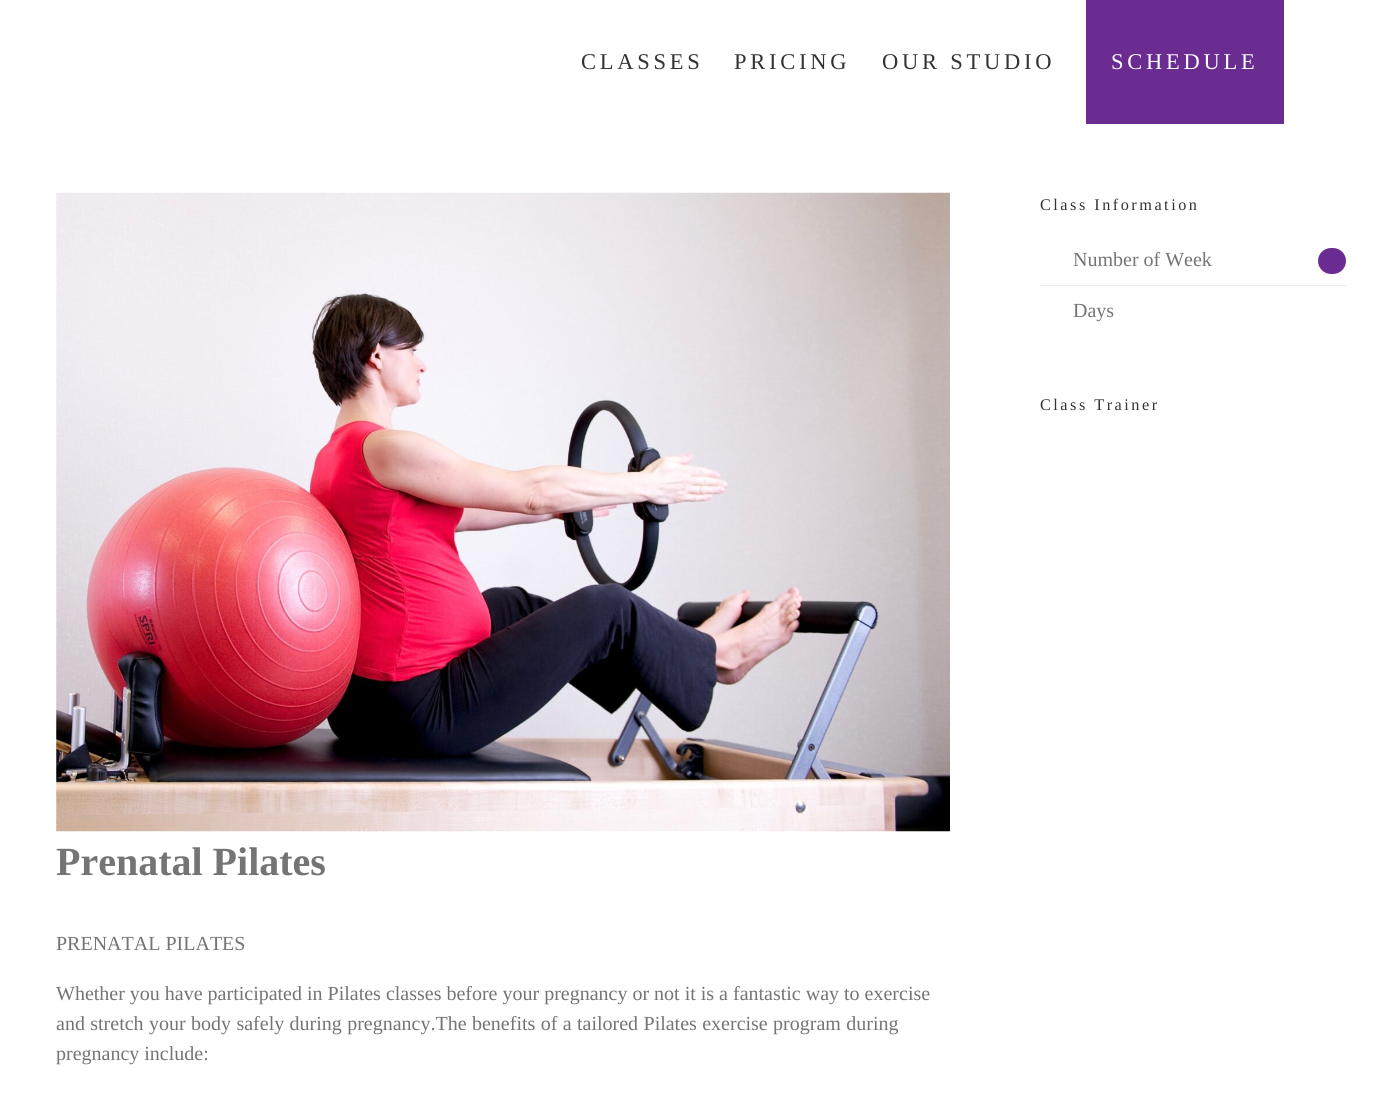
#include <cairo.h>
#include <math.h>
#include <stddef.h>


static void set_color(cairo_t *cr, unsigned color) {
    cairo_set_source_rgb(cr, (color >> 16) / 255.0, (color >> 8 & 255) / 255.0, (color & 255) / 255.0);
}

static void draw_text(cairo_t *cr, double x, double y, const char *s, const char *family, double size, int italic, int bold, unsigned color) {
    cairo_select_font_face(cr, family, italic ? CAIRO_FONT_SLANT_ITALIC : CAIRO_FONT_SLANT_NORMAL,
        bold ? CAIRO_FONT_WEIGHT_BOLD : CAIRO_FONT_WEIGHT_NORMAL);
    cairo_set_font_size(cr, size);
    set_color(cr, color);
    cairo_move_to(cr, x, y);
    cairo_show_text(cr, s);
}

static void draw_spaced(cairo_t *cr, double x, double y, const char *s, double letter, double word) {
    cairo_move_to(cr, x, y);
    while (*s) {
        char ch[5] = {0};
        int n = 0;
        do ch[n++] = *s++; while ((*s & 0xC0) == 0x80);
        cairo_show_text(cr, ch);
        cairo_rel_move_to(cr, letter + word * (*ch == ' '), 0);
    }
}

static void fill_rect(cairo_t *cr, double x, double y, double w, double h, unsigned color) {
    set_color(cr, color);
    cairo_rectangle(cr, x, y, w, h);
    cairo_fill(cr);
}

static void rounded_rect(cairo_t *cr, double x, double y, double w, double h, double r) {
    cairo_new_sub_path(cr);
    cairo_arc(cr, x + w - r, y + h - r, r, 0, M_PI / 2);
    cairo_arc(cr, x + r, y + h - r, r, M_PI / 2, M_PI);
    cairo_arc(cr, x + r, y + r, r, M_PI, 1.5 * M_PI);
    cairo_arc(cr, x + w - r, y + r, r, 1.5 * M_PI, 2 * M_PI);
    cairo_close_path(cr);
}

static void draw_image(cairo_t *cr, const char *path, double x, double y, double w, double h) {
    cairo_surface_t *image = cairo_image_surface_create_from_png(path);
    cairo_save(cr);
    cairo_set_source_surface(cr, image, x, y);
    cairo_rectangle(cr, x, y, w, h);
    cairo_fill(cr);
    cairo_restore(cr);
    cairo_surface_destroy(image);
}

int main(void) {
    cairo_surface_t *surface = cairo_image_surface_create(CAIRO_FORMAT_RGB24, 1383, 1105);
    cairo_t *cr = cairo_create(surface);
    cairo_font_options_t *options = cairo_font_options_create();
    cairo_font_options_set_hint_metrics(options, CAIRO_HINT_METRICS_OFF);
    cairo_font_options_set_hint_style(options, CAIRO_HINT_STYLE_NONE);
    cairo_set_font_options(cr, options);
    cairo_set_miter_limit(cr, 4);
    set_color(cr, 0xFFFFFF);
    cairo_paint(cr);
    cairo_select_font_face(cr, "Liberation Serif", CAIRO_FONT_SLANT_NORMAL, CAIRO_FONT_WEIGHT_NORMAL);
    cairo_set_font_size(cr, 22.5);
    set_color(cr, 0x333333);
    draw_spaced(cr, 581, 69, "CLASSES", 3.75, 0);
    draw_spaced(cr, 734, 69, "PRICING", 3.75, 0);
    draw_spaced(cr, 882, 69, "OUR STUDIO", 3.75, 0);
    fill_rect(cr, 1086, 0, 198, 124, 0x6B2C91);
    set_color(cr, 0xFFFFFF);
    draw_spaced(cr, 1111, 69, "SCHEDULE", 3.75, 0);
    cairo_set_font_size(cr, 16.25);
    set_color(cr, 0x333333);
    draw_spaced(cr, 1040, 210, "Class Information", 2.5, 0);
    fill_rect(cr, 1040, 285, 306, 1, 0xEEEEEE);
    draw_text(cr, 1073, 266, "Number of Week", "Liberation Serif", 20, 0, 0, 0x747474);
    set_color(cr, 0x6B2C91);
    rounded_rect(cr, 1318, 248, 28, 26, 13);
    cairo_fill(cr);
    draw_text(cr, 1073, 317, "Days", "Liberation Serif", 20, 0, 0, 0x747474);
    cairo_set_font_size(cr, 16.25);
    set_color(cr, 0x333333);
    draw_spaced(cr, 1040, 410, "Class Trainer", 2.5, 0);
    draw_image(cr, "assets/img1.png", 56, 192, 894, 640);
    draw_text(cr, 56, 875, "Prenatal Pilates", "Liberation Serif", 40, 0, 1, 0x747474);
    draw_text(cr, 56, 950, "PRENATAL PILATES", "Liberation Serif", 20, 0, 0, 0x747474);
    draw_text(cr, 56, 1000, "Whether you have participated in Pilates classes before your pregnancy or not it is a fantastic way to exercise", "Liberation Serif", 20, 0, 0, 0x747474);
    draw_spaced(cr, 56, 1030, "and stretch your body safely during pregnancy.The benefits of a tailored Pilates exercise program during", 0, 0.4);
    draw_text(cr, 56, 1060, "pregnancy include:", "Liberation Serif", 20, 0, 0, 0x747474);
    cairo_surface_write_to_png(surface, "output.png");
    cairo_font_options_destroy(options);
    cairo_destroy(cr);
    cairo_surface_destroy(surface);
    return 0;
}
